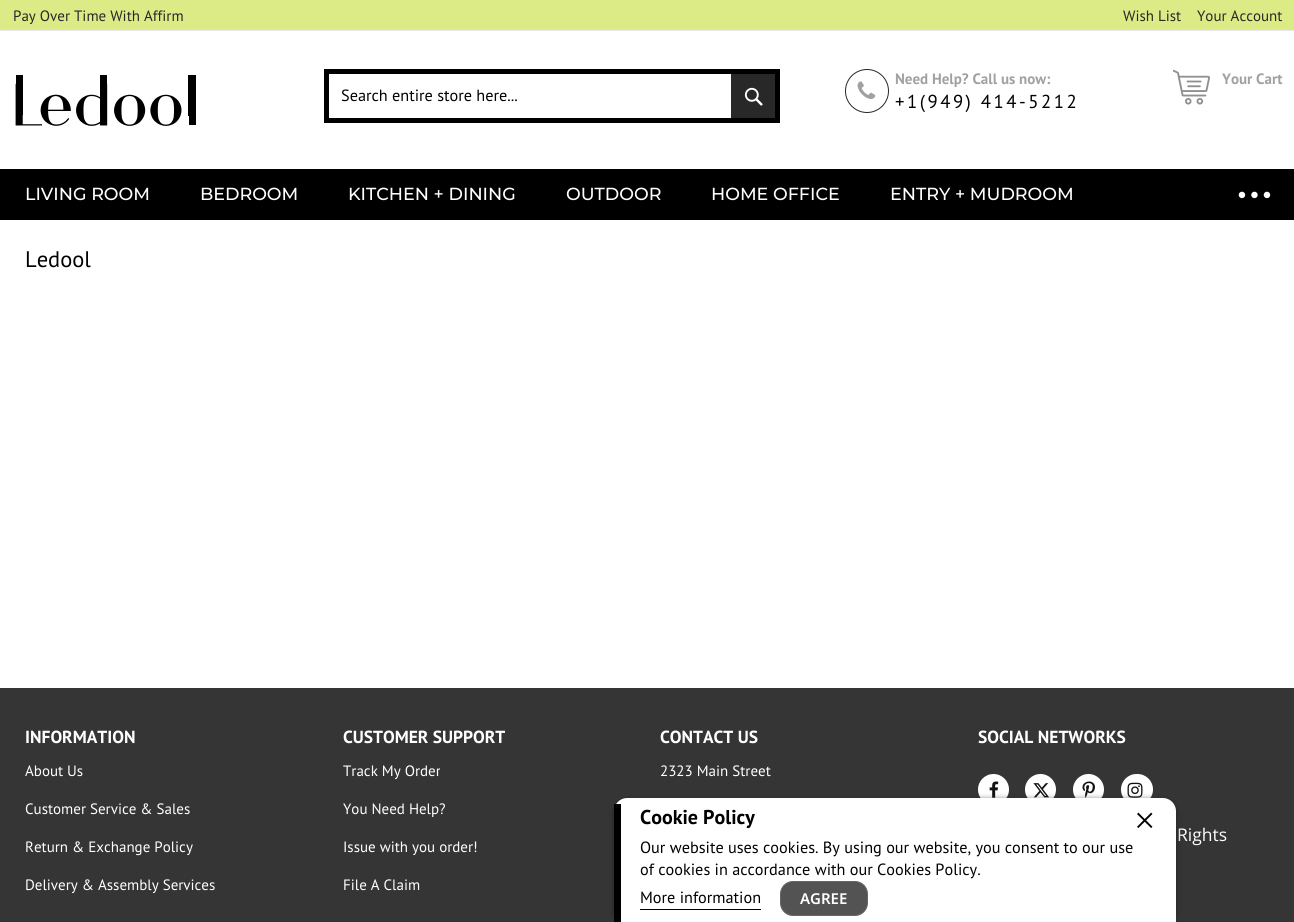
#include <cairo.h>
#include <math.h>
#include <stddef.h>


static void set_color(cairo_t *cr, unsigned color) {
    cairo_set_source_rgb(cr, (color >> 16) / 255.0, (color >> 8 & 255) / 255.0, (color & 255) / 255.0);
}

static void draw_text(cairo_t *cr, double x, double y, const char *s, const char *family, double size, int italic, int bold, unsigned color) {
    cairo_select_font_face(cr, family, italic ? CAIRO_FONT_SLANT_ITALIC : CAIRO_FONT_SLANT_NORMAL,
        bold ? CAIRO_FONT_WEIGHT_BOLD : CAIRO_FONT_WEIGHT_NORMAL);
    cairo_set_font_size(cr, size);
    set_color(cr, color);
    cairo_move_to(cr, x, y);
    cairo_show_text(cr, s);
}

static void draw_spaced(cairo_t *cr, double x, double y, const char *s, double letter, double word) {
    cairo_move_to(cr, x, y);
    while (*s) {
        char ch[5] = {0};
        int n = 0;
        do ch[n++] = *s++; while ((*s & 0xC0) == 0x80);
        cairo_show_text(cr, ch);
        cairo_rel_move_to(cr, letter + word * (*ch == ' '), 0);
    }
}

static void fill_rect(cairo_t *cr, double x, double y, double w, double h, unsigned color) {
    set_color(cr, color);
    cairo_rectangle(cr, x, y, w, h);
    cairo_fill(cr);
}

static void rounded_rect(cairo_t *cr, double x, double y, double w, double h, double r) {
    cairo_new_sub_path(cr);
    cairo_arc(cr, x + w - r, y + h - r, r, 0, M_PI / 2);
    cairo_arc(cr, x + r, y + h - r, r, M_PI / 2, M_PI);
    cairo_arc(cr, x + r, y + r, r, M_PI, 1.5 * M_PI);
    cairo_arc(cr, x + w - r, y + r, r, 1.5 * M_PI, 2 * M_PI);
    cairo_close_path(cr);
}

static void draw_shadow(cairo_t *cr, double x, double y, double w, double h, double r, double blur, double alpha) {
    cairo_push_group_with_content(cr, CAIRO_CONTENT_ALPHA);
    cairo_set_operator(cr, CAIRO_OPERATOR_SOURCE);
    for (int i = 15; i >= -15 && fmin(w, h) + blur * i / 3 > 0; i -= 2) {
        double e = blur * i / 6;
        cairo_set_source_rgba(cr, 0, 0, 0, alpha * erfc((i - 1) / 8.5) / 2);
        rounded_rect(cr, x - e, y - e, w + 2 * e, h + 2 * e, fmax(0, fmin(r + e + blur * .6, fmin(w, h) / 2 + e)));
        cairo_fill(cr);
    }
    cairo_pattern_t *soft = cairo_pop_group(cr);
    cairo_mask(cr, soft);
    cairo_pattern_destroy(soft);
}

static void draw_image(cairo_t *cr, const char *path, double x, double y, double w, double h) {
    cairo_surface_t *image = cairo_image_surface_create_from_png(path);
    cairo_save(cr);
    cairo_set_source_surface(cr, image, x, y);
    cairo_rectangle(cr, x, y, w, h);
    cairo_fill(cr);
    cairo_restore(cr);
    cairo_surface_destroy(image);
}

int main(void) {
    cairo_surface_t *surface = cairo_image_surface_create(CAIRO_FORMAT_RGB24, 1294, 922);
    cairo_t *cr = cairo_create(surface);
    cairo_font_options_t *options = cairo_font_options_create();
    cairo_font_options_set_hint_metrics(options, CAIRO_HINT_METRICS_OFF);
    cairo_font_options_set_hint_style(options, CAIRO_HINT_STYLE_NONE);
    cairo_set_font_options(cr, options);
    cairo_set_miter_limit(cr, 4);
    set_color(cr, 0xFFFFFF);
    cairo_paint(cr);
    fill_rect(cr, 0, 0, 1294, 30, 0xDDEB86);
    fill_rect(cr, 0, 30, 1294, 1, 0xEAEAEE);
    draw_text(cr, 13, 21, "Pay Over Time With Affirm", "PT Sans", 15, 0, 0, 0x282828);
    draw_text(cr, 1123, 21, "Wish List", "PT Sans", 15, 0, 0, 0x282828);
    draw_text(cr, 1197, 21, "Your Account", "PT Sans", 15, 0, 0, 0x282828);
    draw_image(cr, "assets/img1.png", 15, 75, 181, 51);
    cairo_rectangle(cr, 326.5, 71.5, 451, 49);
    set_color(cr, 0x000000);
    cairo_set_line_width(cr, 5);
    cairo_stroke(cr);
    draw_text(cr, 341, 101, "Search entire store here...", "PT Sans", 16.25, 0, 0, 0x000000);
    fill_rect(cr, 731, 74, 44, 44, 0x282828);
    draw_image(cr, "assets/img2.png", 744, 87, 19, 19);
    cairo_arc(cr, 867, 91, 21.5, 0, 2 * M_PI);
    cairo_set_line_width(cr, 1);
    cairo_stroke(cr);
    draw_image(cr, "assets/img3.png", 857, 81, 19, 18);
    draw_text(cr, 895, 84, "Need Help? Call us now:", "PT Sans", 15, 0, 1, 0xA1A1A1);
    cairo_select_font_face(cr, "PT Sans", CAIRO_FONT_SLANT_NORMAL, CAIRO_FONT_WEIGHT_NORMAL);
    cairo_set_font_size(cr, 18.75);
    set_color(cr, 0x000000);
    draw_spaced(cr, 895, 108, "+1(949) 414-5212", 2.5, 0);
    draw_image(cr, "assets/img4.png", 1173, 69, 37, 36);
    draw_text(cr, 1222, 84, "Your Cart", "PT Sans", 15, 0, 1, 0xA1A1A1);
    fill_rect(cr, 0, 169, 1294, 51, 0x000000);
    draw_text(cr, 25, 200, "LIVING ROOM", "Montserrat Medium", 17.5, 0, 0, 0xFFFFFF);
    draw_text(cr, 200, 200, "BEDROOM", "Montserrat Medium", 17.5, 0, 0, 0xFFFFFF);
    draw_text(cr, 348, 200, "KITCHEN + DINING", "Montserrat Medium", 17.5, 0, 0, 0xFFFFFF);
    draw_text(cr, 566, 200, "OUTDOOR", "Montserrat Medium", 17.5, 0, 0, 0xFFFFFF);
    draw_text(cr, 711, 200, "HOME OFFICE", "Montserrat Medium", 17.5, 0, 0, 0xFFFFFF);
    draw_text(cr, 890, 200, "ENTRY + MUDROOM", "Montserrat Medium", 17.5, 0, 0, 0xFFFFFF);
    draw_image(cr, "assets/img5.png", 1238, 191, 8, 8);
    draw_image(cr, "assets/img6.png", 1251, 191, 7, 8);
    draw_image(cr, "assets/img5.png", 1263, 191, 8, 8);
    draw_text(cr, 25, 267, "Ledool", "PT Sans", 22.5, 0, 0, 0x000000);
    fill_rect(cr, 0, 688, 1294, 234, 0x353535);
    draw_text(cr, 25, 743, "INFORMATION", "PT Sans", 17.5, 0, 1, 0xFFFFFF);
    draw_text(cr, 25, 776, "About Us", "PT Sans", 15, 0, 0, 0xFFFFFF);
    draw_text(cr, 25, 814, "Customer Service & Sales", "PT Sans", 15, 0, 0, 0xFFFFFF);
    draw_text(cr, 25, 852, "Return & Exchange Policy", "PT Sans", 15, 0, 0, 0xFFFFFF);
    draw_text(cr, 25, 890, "Delivery & Assembly Services", "PT Sans", 15, 0, 0, 0xFFFFFF);
    draw_text(cr, 343, 743, "CUSTOMER SUPPORT", "PT Sans", 17.5, 0, 1, 0xFFFFFF);
    cairo_save(cr);
    cairo_rectangle(cr, 343, 761, 97, 20);
    cairo_clip(cr);
    draw_text(cr, 343, 776, "Track My Order", "PT Sans", 15, 0, 0, 0xFFFFFF);
    cairo_restore(cr);
    draw_text(cr, 343, 814, "You Need Help?", "PT Sans", 15, 0, 0, 0xFFFFFF);
    draw_text(cr, 343, 852, "Issue with you order!", "PT Sans", 15, 0, 0, 0xFFFFFF);
    draw_text(cr, 343, 890, "File A Claim", "PT Sans", 15, 0, 0, 0xFFFFFF);
    draw_text(cr, 660, 743, "CONTACT US", "PT Sans", 17.5, 0, 1, 0xFFFFFF);
    draw_text(cr, 660, 776, "2323 Main Street", "PT Sans", 15, 0, 0, 0xFFFFFF);
    draw_text(cr, 978, 743, "SOCIAL NETWORKS", "PT Sans", 17.5, 0, 1, 0xFFFFFF);
    cairo_new_path(cr);
    cairo_arc(cr, 993.5, 789.5, 15.5, 0, 2 * M_PI);
    cairo_fill(cr);
    draw_image(cr, "assets/img7.png", 989, 781, 10, 17);
    cairo_arc(cr, 1040.5, 789.5, 15.5, 0, 2 * M_PI);
    cairo_fill(cr);
    draw_image(cr, "assets/img8.png", 1033, 783, 16, 15);
    cairo_arc(cr, 1088.5, 789.5, 15.5, 0, 2 * M_PI);
    cairo_fill(cr);
    draw_image(cr, "assets/img9.png", 1082, 781, 13, 17);
    rounded_rect(cr, 1121, 774, 32, 31, 15.5);
    cairo_fill(cr);
    draw_image(cr, "assets/img10.png", 1127, 782, 16, 16);
    draw_text(cr, 1177, 841, "Rights", "Open Sans", 17.5, 0, 0, 0xFFFFFF);
    set_color(cr, 0x212121);
    draw_shadow(cr, 614, 800, 562, 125, 13, 3, 1);
    set_color(cr, 0xFFFFFF);
    cairo_new_path(cr);
    cairo_move_to(cr, 627, 798);
    cairo_line_to(cr, 1163, 798);
    cairo_curve_to(cr, 1170, 798, 1176, 804, 1176, 811);
    cairo_line_to(cr, 1176, 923);
    cairo_line_to(cr, 614, 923);
    cairo_line_to(cr, 614, 811);
    cairo_curve_to(cr, 614, 804, 620, 798, 627, 798);
    cairo_close_path(cr);
    cairo_fill(cr);
    fill_rect(cr, 614, 804, 7, 118, 0x000000);
    draw_text(cr, 640, 824, "Cookie Policy", "PT Sans", 20, 0, 1, 0x000000);
    draw_text(cr, 640, 853, "Our website uses cookies. By using our website, you consent to our use", "PT Sans", 16.25, 0, 0, 0x000000);
    draw_text(cr, 640, 875, "of cookies in accordance with our Cookies Policy.", "PT Sans", 16.25, 0, 0, 0x000000);
    fill_rect(cr, 640, 909, 121, 1, 0x000000);
    draw_text(cr, 640, 903, "More information", "PT Sans", 16.25, 0, 0, 0x000000);
    set_color(cr, 0x535353);
    rounded_rect(cr, 780.5, 881.5, 87, 34, 12.5);
    cairo_fill_preserve(cr);
    set_color(cr, 0x666666);
    cairo_stroke(cr);
    draw_text(cr, 800, 904, "AGREE", "Noto Sans SemiBold", 15, 0, 0, 0xFFFFFF);
    draw_text(cr, 1134, 833, "×", "Liberation Serif", 38, 0, 0, 0x000000);
    cairo_surface_write_to_png(surface, "output.png");
    cairo_font_options_destroy(options);
    cairo_destroy(cr);
    cairo_surface_destroy(surface);
    return 0;
}
